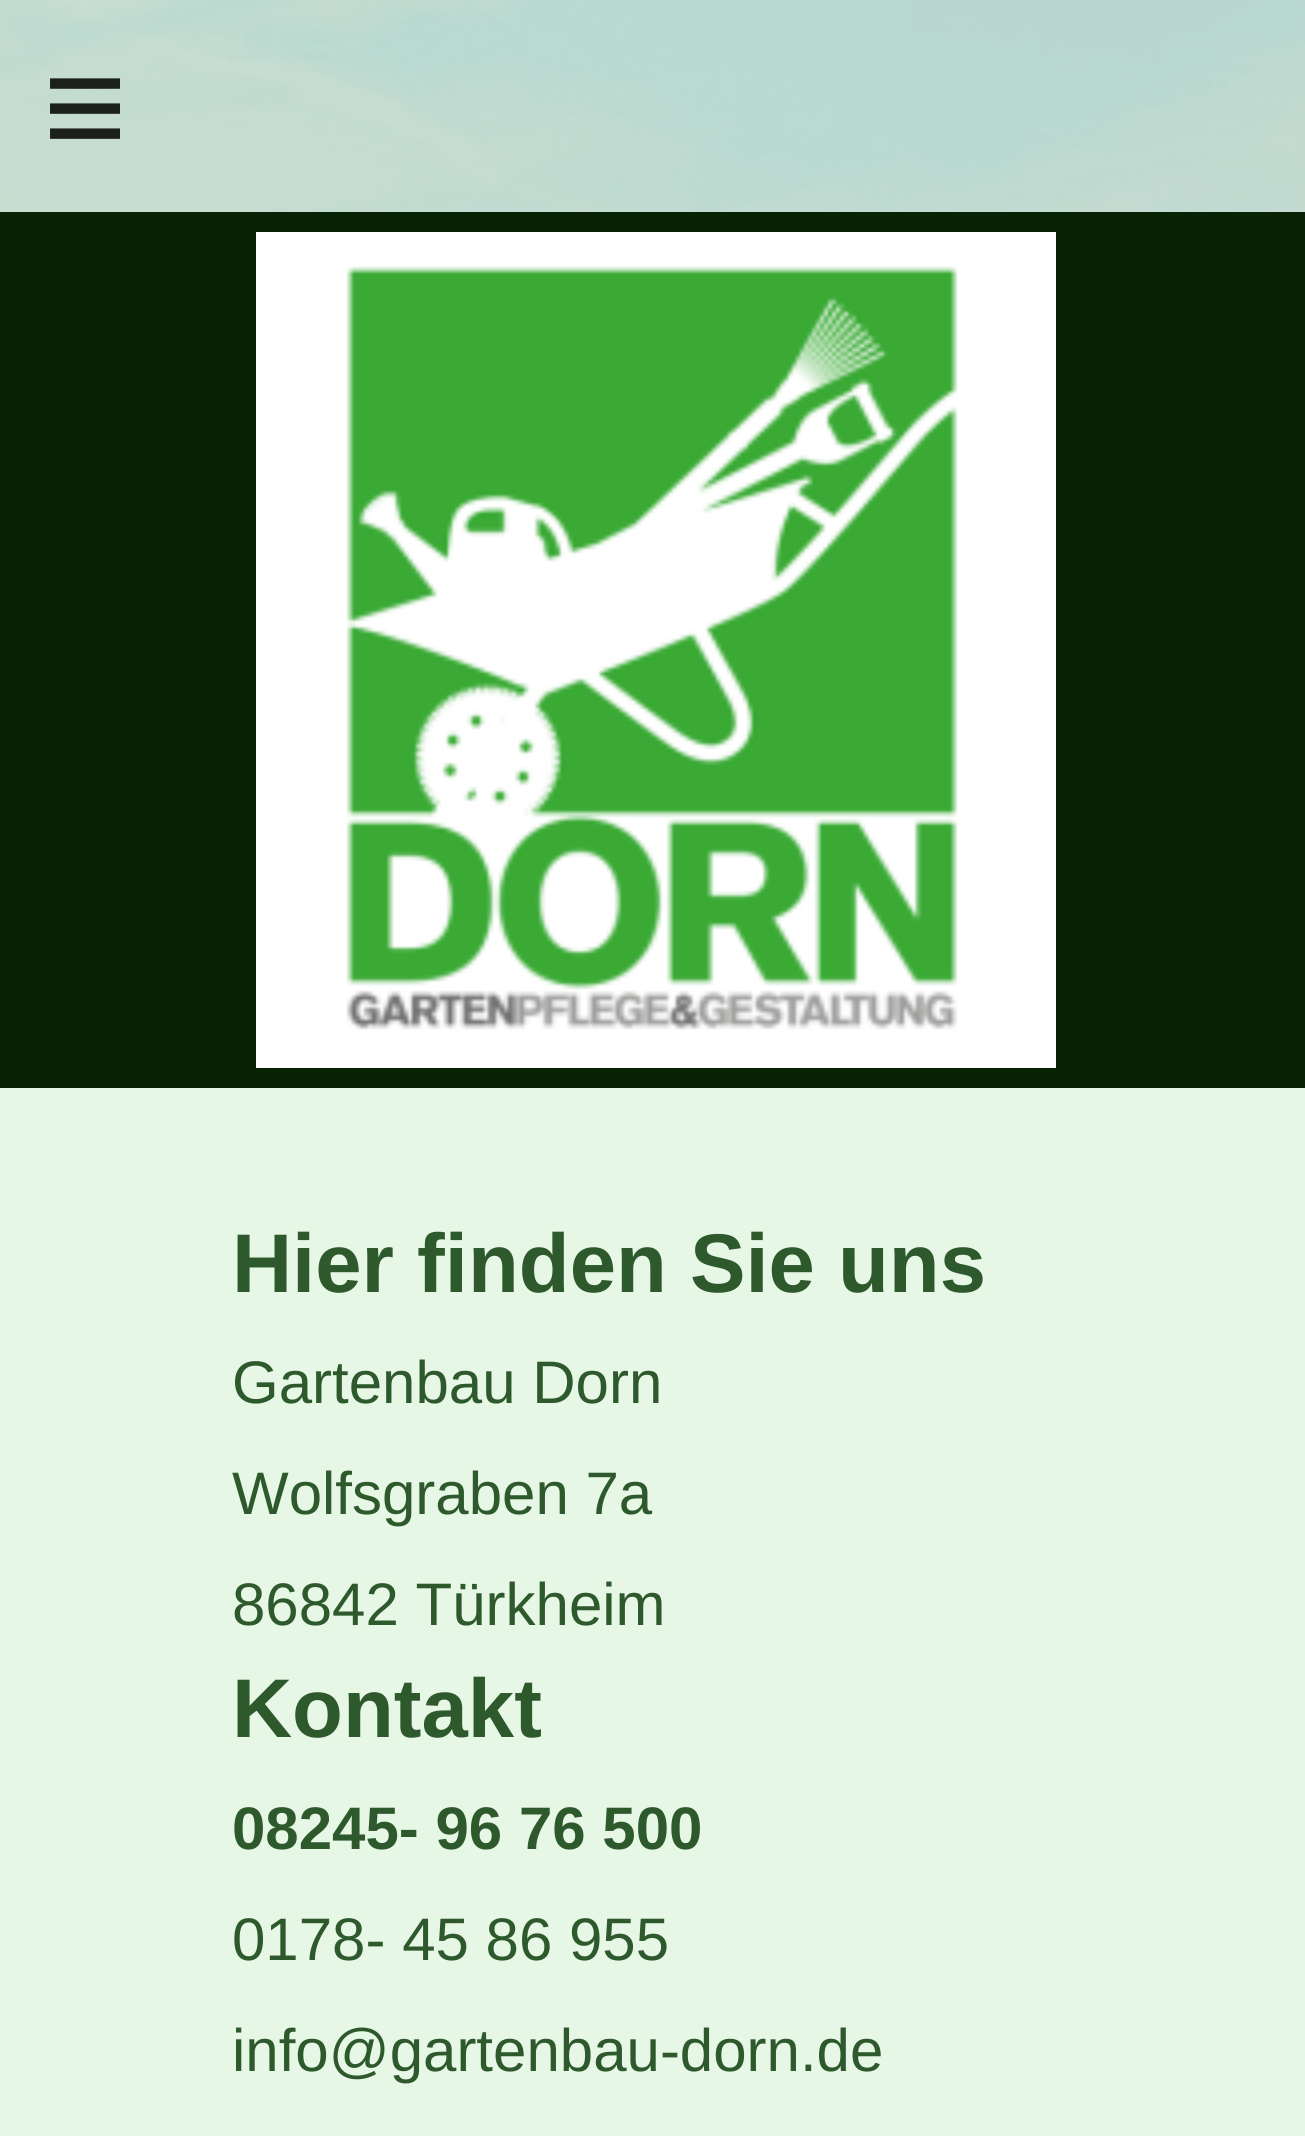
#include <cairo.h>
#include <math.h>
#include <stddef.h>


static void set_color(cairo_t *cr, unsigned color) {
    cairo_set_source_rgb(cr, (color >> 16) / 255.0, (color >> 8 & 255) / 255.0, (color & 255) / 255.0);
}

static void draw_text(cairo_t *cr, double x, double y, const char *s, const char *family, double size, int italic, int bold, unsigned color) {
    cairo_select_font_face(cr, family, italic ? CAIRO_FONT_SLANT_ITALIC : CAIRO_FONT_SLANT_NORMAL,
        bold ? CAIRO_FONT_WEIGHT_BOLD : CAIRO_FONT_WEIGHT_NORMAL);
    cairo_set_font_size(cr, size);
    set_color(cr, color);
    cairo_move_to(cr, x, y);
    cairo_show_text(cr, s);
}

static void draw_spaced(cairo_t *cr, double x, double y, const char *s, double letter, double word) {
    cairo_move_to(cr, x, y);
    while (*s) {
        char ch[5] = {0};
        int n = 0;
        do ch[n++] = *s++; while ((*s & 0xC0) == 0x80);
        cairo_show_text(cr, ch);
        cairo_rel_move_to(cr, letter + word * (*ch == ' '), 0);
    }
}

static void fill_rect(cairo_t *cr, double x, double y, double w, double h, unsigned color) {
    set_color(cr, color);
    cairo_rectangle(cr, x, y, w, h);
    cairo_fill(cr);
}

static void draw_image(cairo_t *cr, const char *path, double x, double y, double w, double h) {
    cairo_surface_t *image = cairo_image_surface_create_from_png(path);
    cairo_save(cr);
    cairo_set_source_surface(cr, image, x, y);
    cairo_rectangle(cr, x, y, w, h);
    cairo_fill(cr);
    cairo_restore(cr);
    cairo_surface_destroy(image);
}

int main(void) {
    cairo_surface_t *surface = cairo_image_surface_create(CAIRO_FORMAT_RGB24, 1305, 2136);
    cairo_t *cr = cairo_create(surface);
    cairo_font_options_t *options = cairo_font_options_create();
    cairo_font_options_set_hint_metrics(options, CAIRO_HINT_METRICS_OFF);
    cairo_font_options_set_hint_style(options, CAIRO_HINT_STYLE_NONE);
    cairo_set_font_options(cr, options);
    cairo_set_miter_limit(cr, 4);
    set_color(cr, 0xFFFFFF);
    cairo_paint(cr);
    draw_image(cr, "assets/img1.png", 0, 0, 1305, 212);
    cairo_set_source_rgba(cr, 0.804, 0.871, 0.8, 0.9);
    cairo_rectangle(cr, 0, 0, 1305, 212);
    cairo_fill(cr);
    cairo_select_font_face(cr, "Liberation Sans", CAIRO_FONT_SLANT_NORMAL, CAIRO_FONT_WEIGHT_BOLD);
    cairo_set_font_size(cr, 144);
    set_color(cr, 0x1B201B);
    draw_spaced(cr, 43, 156, "≡", 42, 0);
    fill_rect(cr, 0, 1088, 1305, 1048, 0xE7F7E6);
    fill_rect(cr, 0, 212, 1305, 876, 0x072303);
    draw_image(cr, "assets/img2.png", 256, 232, 800, 836);
    draw_text(cr, 232, 1292, "Hier finden Sie uns", "Liberation Sans", 83.25, 0, 1, 0x2E592C);
    draw_text(cr, 232, 1403, "Gartenbau Dorn", "Liberation Sans", 60, 0, 0, 0x2E592C);
    draw_text(cr, 232, 1514, "Wolfsgraben 7a", "Liberation Sans", 60, 0, 0, 0x2E592C);
    draw_text(cr, 232, 1625, "86842 Türkheim", "Liberation Sans", 60, 0, 0, 0x2E592C);
    draw_text(cr, 232, 1737, "Kontakt", "Liberation Sans", 83.25, 0, 1, 0x2E592C);
    draw_text(cr, 232, 1849, "08245- 96 76 500", "Liberation Sans", 60, 0, 1, 0x2E592C);
    draw_text(cr, 232, 1960, "0178- 45 86 955", "Liberation Sans", 60, 0, 0, 0x2E592C);
    draw_text(cr, 232, 2071, "info@gartenbau-dorn.de", "Liberation Sans", 60, 0, 0, 0x2E592C);
    cairo_surface_write_to_png(surface, "output.png");
    cairo_font_options_destroy(options);
    cairo_destroy(cr);
    cairo_surface_destroy(surface);
    return 0;
}
